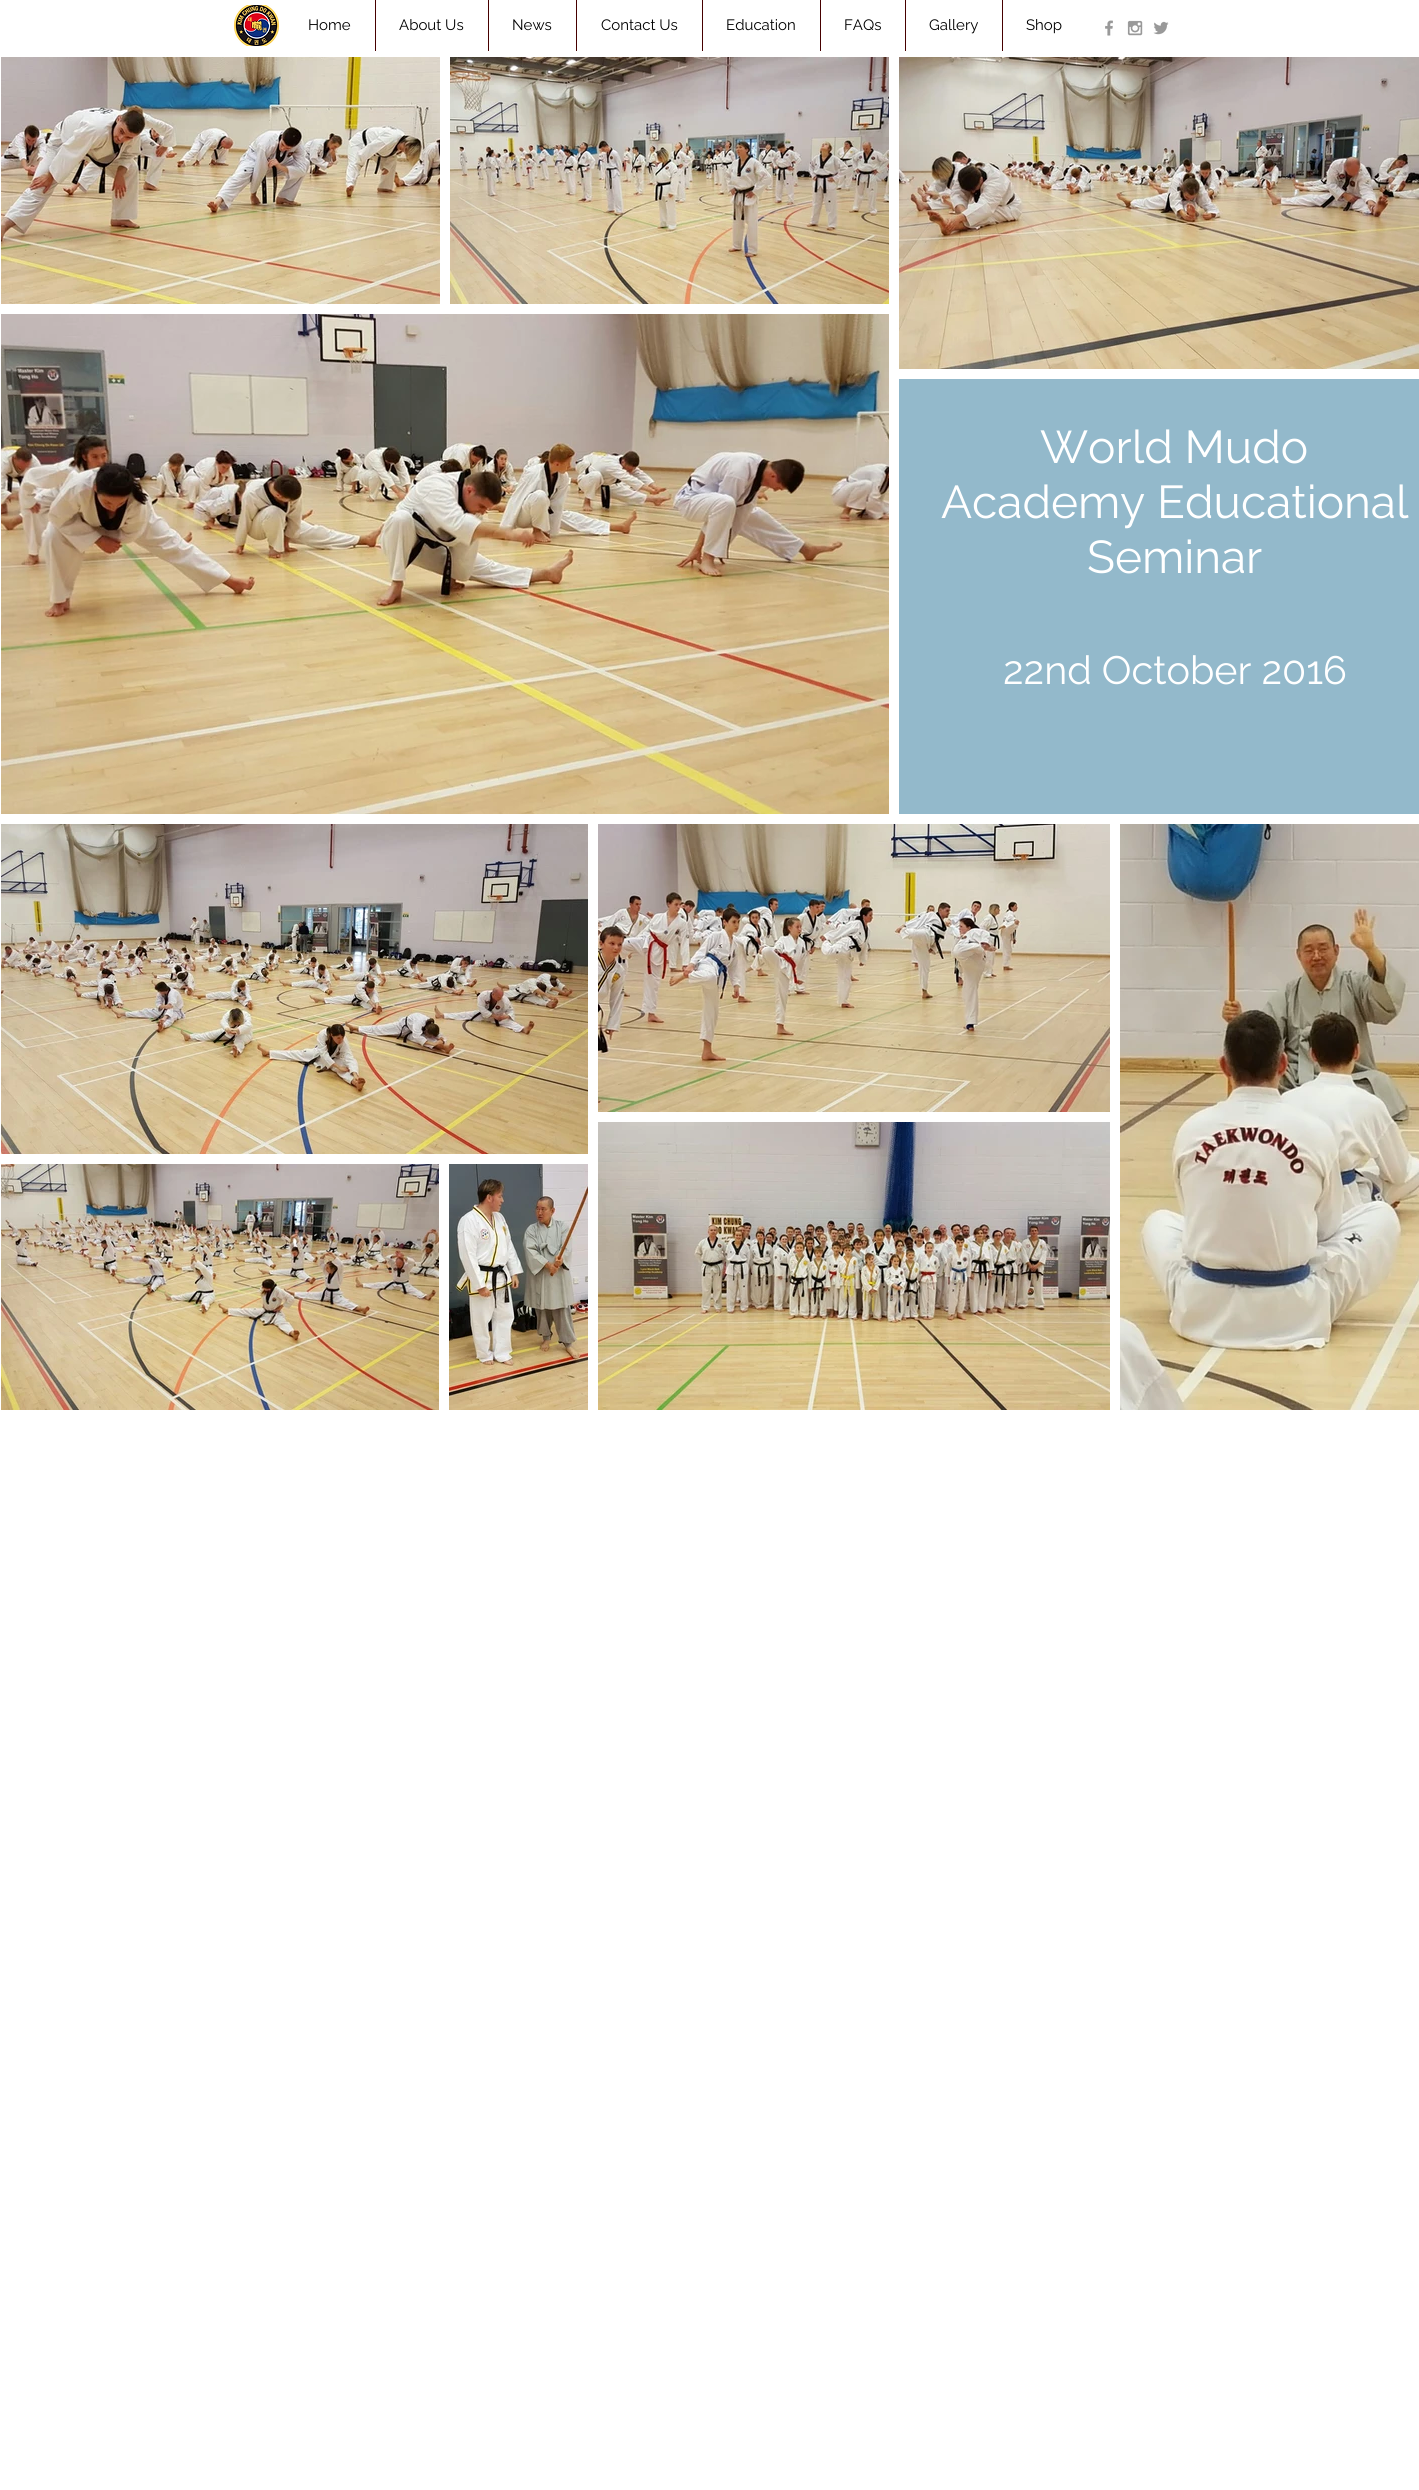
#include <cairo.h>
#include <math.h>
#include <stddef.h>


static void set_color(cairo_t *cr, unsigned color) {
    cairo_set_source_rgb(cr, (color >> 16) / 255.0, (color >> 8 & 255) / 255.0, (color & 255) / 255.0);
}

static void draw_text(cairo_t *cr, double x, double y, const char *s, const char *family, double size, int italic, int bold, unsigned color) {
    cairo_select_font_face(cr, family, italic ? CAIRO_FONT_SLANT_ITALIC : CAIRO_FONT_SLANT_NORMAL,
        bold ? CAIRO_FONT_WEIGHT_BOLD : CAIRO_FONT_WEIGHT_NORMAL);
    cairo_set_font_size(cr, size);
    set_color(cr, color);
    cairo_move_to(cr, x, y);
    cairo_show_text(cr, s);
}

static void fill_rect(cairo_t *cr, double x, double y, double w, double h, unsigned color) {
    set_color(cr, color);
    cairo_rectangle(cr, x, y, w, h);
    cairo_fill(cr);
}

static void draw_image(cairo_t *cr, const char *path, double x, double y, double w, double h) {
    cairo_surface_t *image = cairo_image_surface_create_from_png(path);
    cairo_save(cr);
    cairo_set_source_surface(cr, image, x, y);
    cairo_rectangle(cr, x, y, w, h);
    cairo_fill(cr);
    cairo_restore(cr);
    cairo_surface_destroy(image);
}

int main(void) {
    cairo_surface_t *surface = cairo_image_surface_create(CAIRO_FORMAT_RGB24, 1419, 2490);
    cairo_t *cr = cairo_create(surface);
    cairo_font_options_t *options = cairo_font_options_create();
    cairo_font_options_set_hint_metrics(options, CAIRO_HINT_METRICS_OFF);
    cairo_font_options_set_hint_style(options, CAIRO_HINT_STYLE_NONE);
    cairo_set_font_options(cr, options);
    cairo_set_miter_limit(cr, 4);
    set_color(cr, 0xFFFFFF);
    cairo_paint(cr);
    draw_image(cr, "assets/img1.png", 234, 5, 45, 41);
    draw_text(cr, 308, 30, "Home", "Raleway Thin", 15, 0, 0, 0x000000);
    fill_rect(cr, 375, 0, 1, 51, 0x460000);
    draw_text(cr, 399, 30, "About Us", "Raleway Thin", 15, 0, 0, 0x000000);
    fill_rect(cr, 488, 0, 1, 51, 0x460000);
    draw_text(cr, 512, 30, "News", "Raleway Thin", 15, 0, 0, 0x000000);
    fill_rect(cr, 576, 0, 1, 51, 0x460000);
    draw_text(cr, 601, 30, "Contact Us", "Raleway Thin", 15, 0, 0, 0x000000);
    fill_rect(cr, 702, 0, 1, 51, 0x460000);
    draw_text(cr, 726, 30, "Education", "Raleway Thin", 15, 0, 0, 0x000000);
    fill_rect(cr, 820, 0, 1, 51, 0x460000);
    draw_text(cr, 844, 30, "FAQs", "Raleway Thin", 15, 0, 0, 0x000000);
    fill_rect(cr, 905, 0, 1, 51, 0x460000);
    draw_text(cr, 929, 30, "Gallery", "Raleway Thin", 15, 0, 0, 0x000000);
    fill_rect(cr, 1002, 0, 1, 51, 0x460000);
    draw_text(cr, 1026, 30, "Shop", "Raleway Thin", 15, 0, 0, 0x000000);
    draw_image(cr, "assets/img2.png", 1105, 20, 8, 16);
    draw_image(cr, "assets/img3.png", 1127, 20, 16, 16);
    draw_image(cr, "assets/img4.png", 1153, 21, 16, 14);
    draw_image(cr, "assets/img5.png", 1, 57, 439, 247);
    draw_image(cr, "assets/img6.png", 450, 57, 439, 247);
    draw_image(cr, "assets/img7.png", 899, 57, 520, 312);
    draw_image(cr, "assets/img8.png", 1, 314, 888, 500);
    fill_rect(cr, 899, 379, 520, 435, 0x93B9CB);
    draw_text(cr, 1040, 463, "World Mudo", "Raleway Thin", 46, 0, 0, 0xFFFFFF);
    draw_text(cr, 941, 518, "Academy Educational", "Raleway Thin", 46, 0, 0, 0xFFFFFF);
    draw_text(cr, 1087, 573, "Seminar", "Raleway Thin", 46, 0, 0, 0xFFFFFF);
    draw_text(cr, 1003, 684, "22nd October 2016", "Raleway Thin", 39.5, 0, 0, 0xFFFFFF);
    draw_image(cr, "assets/img9.png", 1, 824, 587, 330);
    draw_image(cr, "assets/img10.png", 598, 824, 512, 288);
    draw_image(cr, "assets/img11.png", 1120, 824, 299, 586);
    draw_image(cr, "assets/img12.png", 1, 1164, 438, 246);
    draw_image(cr, "assets/img13.png", 449, 1164, 139, 246);
    draw_image(cr, "assets/img14.png", 598, 1122, 512, 288);
    cairo_surface_write_to_png(surface, "output.png");
    cairo_font_options_destroy(options);
    cairo_destroy(cr);
    cairo_surface_destroy(surface);
    return 0;
}
